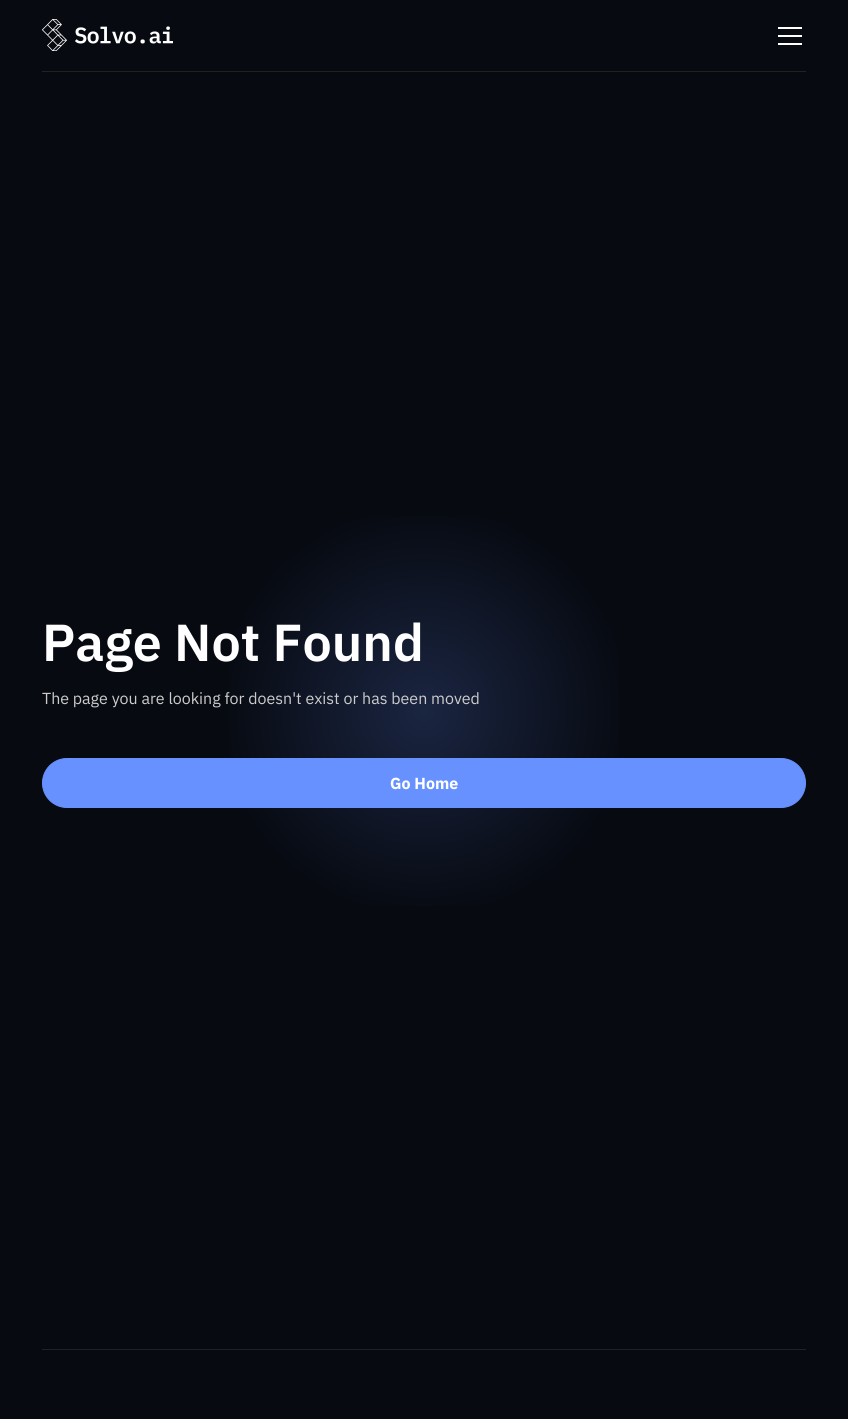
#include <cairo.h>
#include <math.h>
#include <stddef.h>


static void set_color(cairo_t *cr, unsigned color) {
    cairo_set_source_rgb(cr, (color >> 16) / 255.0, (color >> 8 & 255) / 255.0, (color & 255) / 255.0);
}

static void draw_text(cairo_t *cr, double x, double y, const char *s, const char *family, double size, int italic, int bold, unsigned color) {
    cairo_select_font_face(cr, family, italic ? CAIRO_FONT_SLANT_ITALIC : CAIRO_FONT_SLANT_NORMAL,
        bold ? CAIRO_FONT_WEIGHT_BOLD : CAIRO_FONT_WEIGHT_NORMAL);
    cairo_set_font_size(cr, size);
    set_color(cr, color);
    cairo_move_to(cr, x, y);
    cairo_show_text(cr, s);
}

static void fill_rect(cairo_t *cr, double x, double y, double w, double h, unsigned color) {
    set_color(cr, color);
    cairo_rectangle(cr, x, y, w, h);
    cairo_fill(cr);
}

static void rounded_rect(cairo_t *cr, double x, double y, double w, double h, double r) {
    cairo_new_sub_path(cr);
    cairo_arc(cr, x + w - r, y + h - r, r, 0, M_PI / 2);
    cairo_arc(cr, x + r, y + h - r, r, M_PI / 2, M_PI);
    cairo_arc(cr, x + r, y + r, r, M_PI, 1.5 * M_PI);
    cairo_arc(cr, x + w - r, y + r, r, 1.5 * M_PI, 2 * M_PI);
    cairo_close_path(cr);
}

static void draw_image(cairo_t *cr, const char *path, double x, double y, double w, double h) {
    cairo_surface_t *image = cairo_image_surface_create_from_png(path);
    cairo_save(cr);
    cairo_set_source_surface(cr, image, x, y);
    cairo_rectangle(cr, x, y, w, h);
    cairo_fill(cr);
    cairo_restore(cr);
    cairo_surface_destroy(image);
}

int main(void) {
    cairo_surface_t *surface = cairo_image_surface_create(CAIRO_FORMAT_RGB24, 848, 1419);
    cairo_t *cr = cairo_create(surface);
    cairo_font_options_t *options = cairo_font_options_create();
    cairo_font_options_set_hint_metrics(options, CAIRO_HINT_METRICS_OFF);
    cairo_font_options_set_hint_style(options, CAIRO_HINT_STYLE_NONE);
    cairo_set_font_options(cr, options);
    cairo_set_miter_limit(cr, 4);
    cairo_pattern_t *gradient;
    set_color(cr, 0x070A11);
    cairo_paint(cr);
    fill_rect(cr, 42, 71, 764, 1, 0x222222);
    draw_image(cr, "assets/img1.png", 42, 19, 131, 32);
    fill_rect(cr, 778, 27, 24, 2, 0xFFFFFF);
    fill_rect(cr, 778, 35, 24, 2, 0xFFFFFF);
    fill_rect(cr, 778, 43, 24, 2, 0xFFFFFF);
    gradient = cairo_pattern_create_radial(424, 711, 0, 424, 711, 766);
    cairo_pattern_add_color_stop_rgba(gradient, 0, 0.102, 0.145, 0.255, 1);
    cairo_pattern_add_color_stop_rgba(gradient, 0.27, 0.027, 0.039, 0.067, 1);
    cairo_set_source(cr, gradient);
    cairo_pattern_destroy(gradient);
    cairo_rectangle(cr, 229, 516, 390, 390);
    cairo_fill(cr);
    draw_text(cr, 42, 661, "Page Not Found", "IBM Plex Sans SemiBold", 52, 0, 0, 0xFFFFFF);
    draw_text(cr, 42, 704, "The page you are looking for doesn't exist or has been moved", "IBM Plex Sans", 16, 0, 0, 0xCCCCCC);
    set_color(cr, 0x6691FF);
    rounded_rect(cr, 42.5, 758.5, 763, 49, 24.5);
    cairo_fill_preserve(cr);
    cairo_set_line_width(cr, 1);
    cairo_stroke(cr);
    draw_text(cr, 390, 789, "Go Home", "IBM Plex Sans", 16, 0, 1, 0xFFFFFF);
    fill_rect(cr, 42, 1349, 764, 1, 0x222222);
    cairo_surface_write_to_png(surface, "output.png");
    cairo_font_options_destroy(options);
    cairo_destroy(cr);
    cairo_surface_destroy(surface);
    return 0;
}
